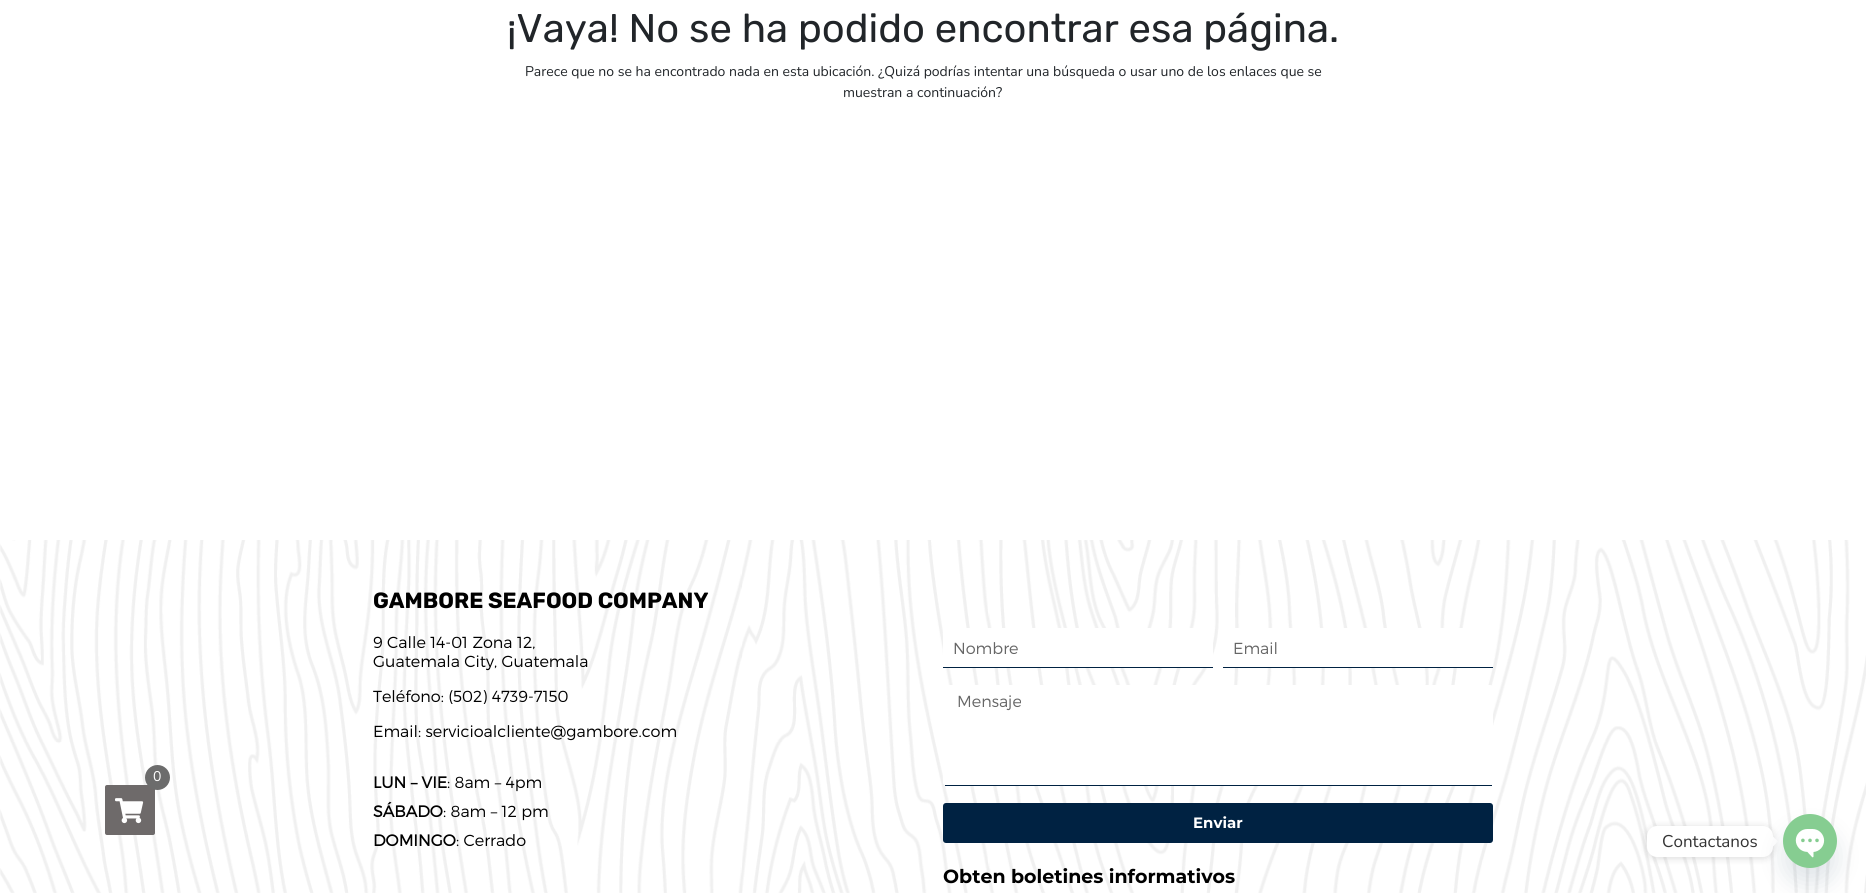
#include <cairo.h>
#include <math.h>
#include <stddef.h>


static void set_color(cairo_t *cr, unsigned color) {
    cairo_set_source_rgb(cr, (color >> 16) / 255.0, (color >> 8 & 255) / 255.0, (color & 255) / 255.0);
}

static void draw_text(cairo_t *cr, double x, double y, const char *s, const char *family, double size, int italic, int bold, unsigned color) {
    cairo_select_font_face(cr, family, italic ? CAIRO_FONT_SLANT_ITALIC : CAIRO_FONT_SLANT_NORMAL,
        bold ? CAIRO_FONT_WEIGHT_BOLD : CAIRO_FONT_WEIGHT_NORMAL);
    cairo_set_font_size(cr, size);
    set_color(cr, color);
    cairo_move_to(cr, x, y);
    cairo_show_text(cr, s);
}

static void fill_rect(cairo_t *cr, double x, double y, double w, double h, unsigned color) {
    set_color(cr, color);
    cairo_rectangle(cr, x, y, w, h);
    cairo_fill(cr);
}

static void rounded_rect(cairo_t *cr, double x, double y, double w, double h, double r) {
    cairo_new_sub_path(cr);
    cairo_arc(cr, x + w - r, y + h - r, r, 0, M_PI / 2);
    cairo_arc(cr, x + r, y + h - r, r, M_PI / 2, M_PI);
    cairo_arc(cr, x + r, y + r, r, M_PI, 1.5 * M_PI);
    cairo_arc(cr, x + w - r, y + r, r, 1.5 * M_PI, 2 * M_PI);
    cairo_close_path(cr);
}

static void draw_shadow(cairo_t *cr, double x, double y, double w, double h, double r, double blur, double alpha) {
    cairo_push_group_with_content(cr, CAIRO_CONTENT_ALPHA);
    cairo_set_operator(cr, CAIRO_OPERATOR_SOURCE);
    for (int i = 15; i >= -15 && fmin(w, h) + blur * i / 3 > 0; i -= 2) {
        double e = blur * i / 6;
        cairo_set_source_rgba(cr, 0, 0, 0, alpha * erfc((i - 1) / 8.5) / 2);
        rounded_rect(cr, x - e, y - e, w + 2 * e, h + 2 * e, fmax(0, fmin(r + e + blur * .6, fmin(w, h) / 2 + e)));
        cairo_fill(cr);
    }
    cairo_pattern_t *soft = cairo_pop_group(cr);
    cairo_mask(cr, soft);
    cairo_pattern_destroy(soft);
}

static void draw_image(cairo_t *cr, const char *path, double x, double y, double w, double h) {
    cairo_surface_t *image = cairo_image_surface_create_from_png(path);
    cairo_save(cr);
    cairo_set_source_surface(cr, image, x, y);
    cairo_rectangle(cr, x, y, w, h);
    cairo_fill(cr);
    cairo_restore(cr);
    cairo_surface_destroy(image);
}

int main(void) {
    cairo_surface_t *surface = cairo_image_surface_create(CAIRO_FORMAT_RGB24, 1866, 893);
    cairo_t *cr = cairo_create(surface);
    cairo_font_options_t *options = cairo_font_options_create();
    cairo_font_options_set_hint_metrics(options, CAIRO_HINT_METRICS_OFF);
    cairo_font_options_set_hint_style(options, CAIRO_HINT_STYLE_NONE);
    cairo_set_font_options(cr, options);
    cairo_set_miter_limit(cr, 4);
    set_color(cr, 0xFFFFFF);
    cairo_paint(cr);
    draw_image(cr, "assets/img2.png", 0, 540, 1866, 353);
    set_color(cr, 0x6E6A6A);
    rounded_rect(cr, 105, 785, 50, 50, 2);
    cairo_fill(cr);
    set_color(cr, 0x6C6C6C);
    cairo_arc(cr, 157.5, 777.5, 12.5, 0, 2 * M_PI);
    cairo_fill(cr);
    draw_text(cr, 153, 781, "0", "Nunito", 14, 0, 0, 0xFFFFFF);
    draw_image(cr, "assets/img1.png", 115, 798, 29, 26);
    draw_text(cr, 507, 42, "¡Vaya! No se ha podido encontrar esa página.", "Rubik", 40, 0, 0, 0x212529);
    draw_text(cr, 525, 76, "Parece que no se ha encontrado nada en esta ubicación. ¿Quizá podrías intentar una búsqueda o usar uno de los enlaces que se", "Nunito", 14, 0, 0, 0x212529);
    draw_text(cr, 843, 97, "muestran a continuación?", "Nunito", 14, 0, 0, 0x212529);
    draw_text(cr, 373, 608, "GAMBORE SEAFOOD COMPANY", "Rubik", 22, 0, 1, 0x000000);
    draw_text(cr, 373, 648, "9 Calle 14-01 Zona 12,", "Montserrat Light", 16, 0, 0, 0x000000);
    draw_text(cr, 373, 667, "Guatemala City, Guatemala", "Montserrat Light", 16, 0, 0, 0x000000);
    draw_text(cr, 373, 702, "Teléfono: (502) 4739-7150", "Montserrat Light", 16, 0, 0, 0x000000);
    draw_text(cr, 373, 737, "Email: servicioalcliente@gambore.com", "Montserrat Light", 16, 0, 0, 0x000000);
    draw_text(cr, 373, 788, "LUN – VIE", "Montserrat", 16, 0, 1, 0x000000);
    draw_text(cr, 447, 788, ": 8am – 4pm", "Montserrat Light", 16, 0, 0, 0x000000);
    draw_text(cr, 373, 817, "SÁBADO", "Montserrat", 16, 0, 1, 0x000000);
    draw_text(cr, 443, 817, ": 8am – 12 pm", "Montserrat Light", 16, 0, 0, 0x000000);
    draw_text(cr, 373, 846, "DOMINGO", "Montserrat", 16, 0, 1, 0x000000);
    draw_text(cr, 456, 846, ": Cerrado", "Montserrat Light", 16, 0, 0, 0x000000);
    fill_rect(cr, 943, 628, 270, 39, 0xFFFFFF);
    fill_rect(cr, 943, 667, 270, 1, 0x002242);
    draw_text(cr, 953, 654, "Nombre", "Montserrat Light", 16, 0, 0, 0x666666);
    fill_rect(cr, 1235, 628, 258, 39, 0xFFFFFF);
    fill_rect(cr, 1223, 667, 270, 1, 0x002242);
    draw_text(cr, 1233, 654, "Email", "Montserrat Light", 16, 0, 0, 0x666666);
    set_color(cr, 0xFFFFFF);
    cairo_new_path(cr);
    cairo_move_to(cr, 946, 685);
    cairo_line_to(cr, 1490, 685);
    cairo_curve_to(cr, 1492, 685, 1493, 686, 1493, 688);
    cairo_line_to(cr, 1493, 783);
    cairo_curve_to(cr, 1493, 784, 1492, 785, 1490, 785);
    cairo_line_to(cr, 946, 785);
    cairo_curve_to(cr, 944, 785, 943, 784, 943, 783);
    cairo_line_to(cr, 943, 688);
    cairo_curve_to(cr, 943, 686, 944, 685, 946, 685);
    cairo_close_path(cr);
    cairo_fill(cr);
    fill_rect(cr, 945, 785, 547, 1, 0x002242);
    draw_text(cr, 957, 707, "Mensaje", "Montserrat Light", 16, 0, 0, 0x666666);
    set_color(cr, 0x002242);
    rounded_rect(cr, 943, 803, 550, 40, 3);
    cairo_fill(cr);
    draw_text(cr, 1193, 828, "Enviar", "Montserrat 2", 15, 0, 1, 0xFFFFFF);
    draw_text(cr, 943, 883, "Obten boletines informativos", "Montserrat 2", 19, 0, 1, 0x000000);
    set_color(cr, 0x000000);
    draw_shadow(cr, 1647, 827, 126, 31, 10, 4, 0.15);
    set_color(cr, 0xFFFFFF);
    rounded_rect(cr, 1647, 826, 126, 31, 10);
    cairo_fill(cr);
    draw_text(cr, 1662, 847, "Contactanos", "Nunito", 17, 0, 0, 0x333333);
    set_color(cr, 0xFFFFFF);
    cairo_new_path(cr);
    cairo_move_to(cr, 1773, 846.5);
    cairo_line_to(cr, 1773, 836.5);
    cairo_line_to(cr, 1778, 841.5);
    cairo_close_path(cr);
    cairo_fill(cr);
    set_color(cr, 0x49687E);
    draw_shadow(cr, 1783, 830, 54, 54, 27, 12, 0.16);
    draw_image(cr, "assets/img3.png", 1783, 814, 54, 54);
    cairo_surface_write_to_png(surface, "output.png");
    cairo_font_options_destroy(options);
    cairo_destroy(cr);
    cairo_surface_destroy(surface);
    return 0;
}
